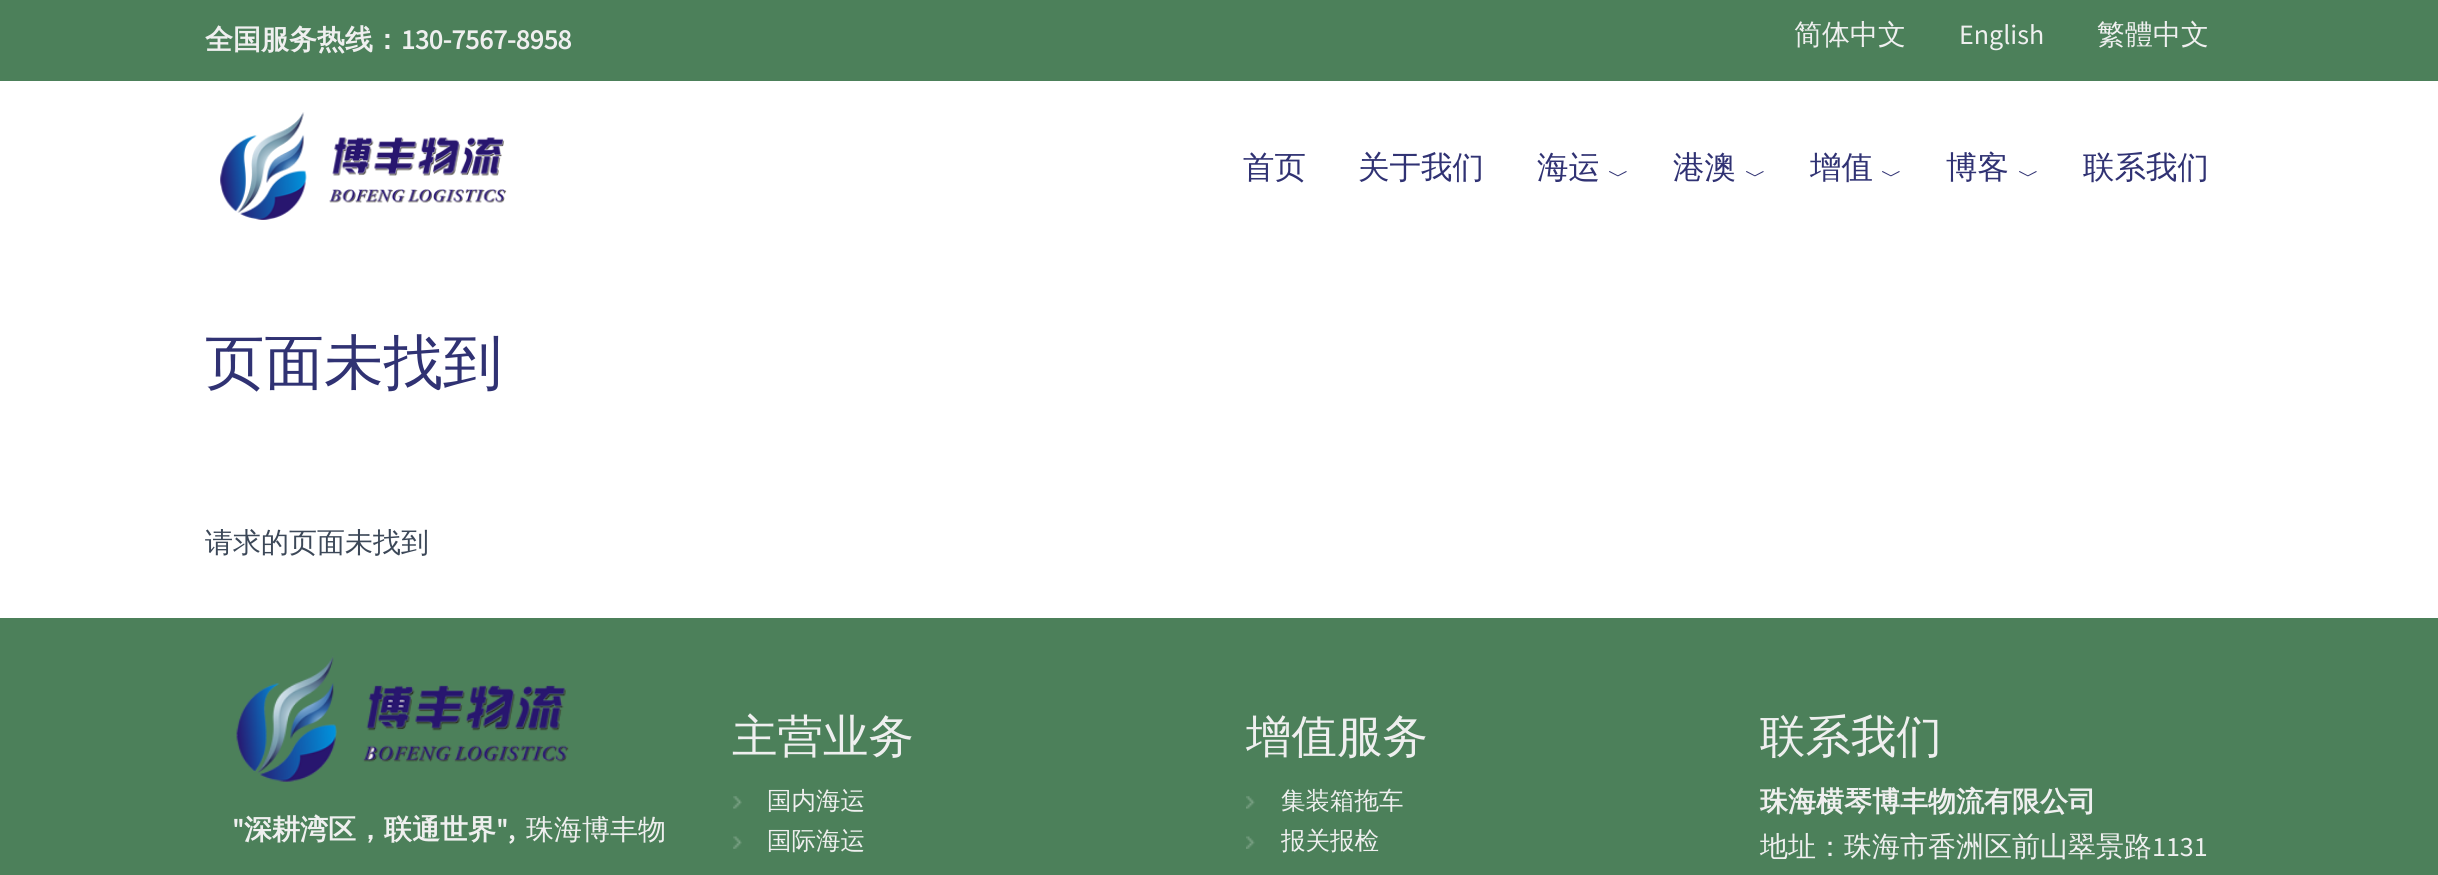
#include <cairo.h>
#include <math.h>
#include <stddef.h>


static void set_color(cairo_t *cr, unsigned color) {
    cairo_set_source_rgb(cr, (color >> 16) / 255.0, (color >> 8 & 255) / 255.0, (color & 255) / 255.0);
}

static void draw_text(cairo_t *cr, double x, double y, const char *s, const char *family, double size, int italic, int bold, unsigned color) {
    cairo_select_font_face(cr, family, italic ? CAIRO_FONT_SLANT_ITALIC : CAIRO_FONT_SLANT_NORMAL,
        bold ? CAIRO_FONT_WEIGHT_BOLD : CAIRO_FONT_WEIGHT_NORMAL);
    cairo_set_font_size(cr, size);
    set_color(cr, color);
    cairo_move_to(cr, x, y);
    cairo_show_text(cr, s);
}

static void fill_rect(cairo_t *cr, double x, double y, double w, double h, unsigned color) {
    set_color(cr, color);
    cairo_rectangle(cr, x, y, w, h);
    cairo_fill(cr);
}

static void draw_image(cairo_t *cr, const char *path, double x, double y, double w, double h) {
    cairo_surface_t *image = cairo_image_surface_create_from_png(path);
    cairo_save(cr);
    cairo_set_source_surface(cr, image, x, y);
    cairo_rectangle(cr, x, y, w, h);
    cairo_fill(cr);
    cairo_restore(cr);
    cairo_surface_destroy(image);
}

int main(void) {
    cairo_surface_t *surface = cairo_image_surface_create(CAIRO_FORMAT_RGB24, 2438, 875);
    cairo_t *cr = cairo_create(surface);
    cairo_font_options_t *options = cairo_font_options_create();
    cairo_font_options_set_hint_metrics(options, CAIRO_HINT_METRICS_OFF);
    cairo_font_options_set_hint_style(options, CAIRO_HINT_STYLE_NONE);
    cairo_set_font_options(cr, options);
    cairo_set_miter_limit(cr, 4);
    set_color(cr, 0xFFFFFF);
    cairo_paint(cr);
    fill_rect(cr, 0, 0, 2438, 81, 0x4C805A);
    draw_text(cr, 205, 49, "全国服务热线：", "WenQuanYi Zen Hei", 28, 0, 1, 0xEFEFEF);
    draw_text(cr, 401, 49, "130-7567-8958", "Source Sans Pro", 28, 0, 1, 0xEFEFEF);
    draw_text(cr, 1794, 44, "简体中文", "WenQuanYi Zen Hei Medium", 28, 0, 0, 0xEFEFEF);
    draw_text(cr, 1959, 44, "English", "Source Sans Pro", 28, 0, 0, 0xEFEFEF);
    draw_text(cr, 2097, 44, "繁體中文", "WenQuanYi Zen Hei Medium", 28, 0, 0, 0xEFEFEF);
    draw_image(cr, "assets/img1.png", 220, 112, 287, 108);
    draw_text(cr, 1243, 178, "首页", "WenQuanYi Zen Hei Medium", 31.5, 0, 0, 0x303273);
    draw_text(cr, 1358, 178, "关于我们", "WenQuanYi Zen Hei Medium", 31.5, 0, 0, 0x303273);
    draw_text(cr, 1537, 178, "海运", "WenQuanYi Zen Hei Medium", 31.5, 0, 0, 0x303273);
    draw_text(cr, 1608, 183, "﹀", "WenQuanYi Zen Hei Medium", 21, 0, 0, 0x303273);
    draw_text(cr, 1673, 178, "港澳", "WenQuanYi Zen Hei Medium", 31.5, 0, 0, 0x303273);
    draw_text(cr, 1745, 183, "﹀", "WenQuanYi Zen Hei Medium", 21, 0, 0, 0x303273);
    draw_text(cr, 1810, 178, "增值", "WenQuanYi Zen Hei Medium", 31.5, 0, 0, 0x303273);
    draw_text(cr, 1881, 183, "﹀", "WenQuanYi Zen Hei Medium", 21, 0, 0, 0x303273);
    draw_text(cr, 1946, 178, "博客", "WenQuanYi Zen Hei Medium", 31.5, 0, 0, 0x303273);
    draw_text(cr, 2018, 183, "﹀", "WenQuanYi Zen Hei Medium", 21, 0, 0, 0x303273);
    draw_text(cr, 2083, 178, "联系我们", "WenQuanYi Zen Hei Medium", 31.5, 0, 0, 0x303273);
    draw_text(cr, 205, 383, "页面未找到", "WenQuanYi Zen Hei Medium", 59.5, 0, 0, 0x303273);
    draw_text(cr, 205, 552, "请求的页面未找到", "WenQuanYi Zen Hei Medium", 28, 0, 0, 0x3C4858);
    fill_rect(cr, 0, 618, 2438, 257, 0x4C805A);
    draw_image(cr, "assets/img2.png", 236, 656, 333, 126);
    draw_text(cr, 232, 839, "\"", "Source Sans Pro", 28, 0, 1, 0xEFEFEF);
    draw_text(cr, 244, 839, "深耕湾区，联通世界", "WenQuanYi Zen Hei", 28, 0, 1, 0xEFEFEF);
    draw_text(cr, 496, 839, "\",", "Source Sans Pro", 28, 0, 1, 0xEFEFEF);
    draw_text(cr, 526, 839, "珠海博丰物", "WenQuanYi Zen Hei Medium", 28, 0, 0, 0xEFEFEF);
    draw_text(cr, 732, 752, "主营业务", "WenQuanYi Zen Hei Medium", 45.5, 0, 0, 0xEFEFEF);
    draw_image(cr, "assets/img3.png", 733, 796, 9, 13);
    draw_text(cr, 767, 809, "国内海运", "WenQuanYi Zen Hei Medium", 24.5, 0, 0, 0xEFEFEF);
    draw_image(cr, "assets/img4.png", 733, 836, 9, 13);
    draw_text(cr, 767, 849, "国际海运", "WenQuanYi Zen Hei Medium", 24.5, 0, 0, 0xEFEFEF);
    draw_text(cr, 1246, 752, "增值服务", "WenQuanYi Zen Hei Medium", 45.5, 0, 0, 0xEFEFEF);
    draw_image(cr, "assets/img5.png", 1246, 796, 9, 13);
    draw_text(cr, 1281, 809, "集装箱拖车", "WenQuanYi Zen Hei Medium", 24.5, 0, 0, 0xEFEFEF);
    draw_image(cr, "assets/img6.png", 1246, 836, 9, 13);
    draw_text(cr, 1281, 849, "报关报检", "WenQuanYi Zen Hei Medium", 24.5, 0, 0, 0xEFEFEF);
    draw_text(cr, 1760, 752, "联系我们", "WenQuanYi Zen Hei Medium", 45.5, 0, 0, 0xEFEFEF);
    draw_text(cr, 1760, 811, "珠海横琴博丰物流有限公司", "WenQuanYi Zen Hei", 28, 0, 1, 0xEFEFEF);
    draw_text(cr, 1760, 856, "地址：珠海市香洲区前山翠景路", "WenQuanYi Zen Hei Medium", 28, 0, 0, 0xEFEFEF);
    draw_text(cr, 2152, 856, "1131", "Source Sans Pro", 28, 0, 0, 0xEFEFEF);
    cairo_surface_write_to_png(surface, "output.png");
    cairo_font_options_destroy(options);
    cairo_destroy(cr);
    cairo_surface_destroy(surface);
    return 0;
}
